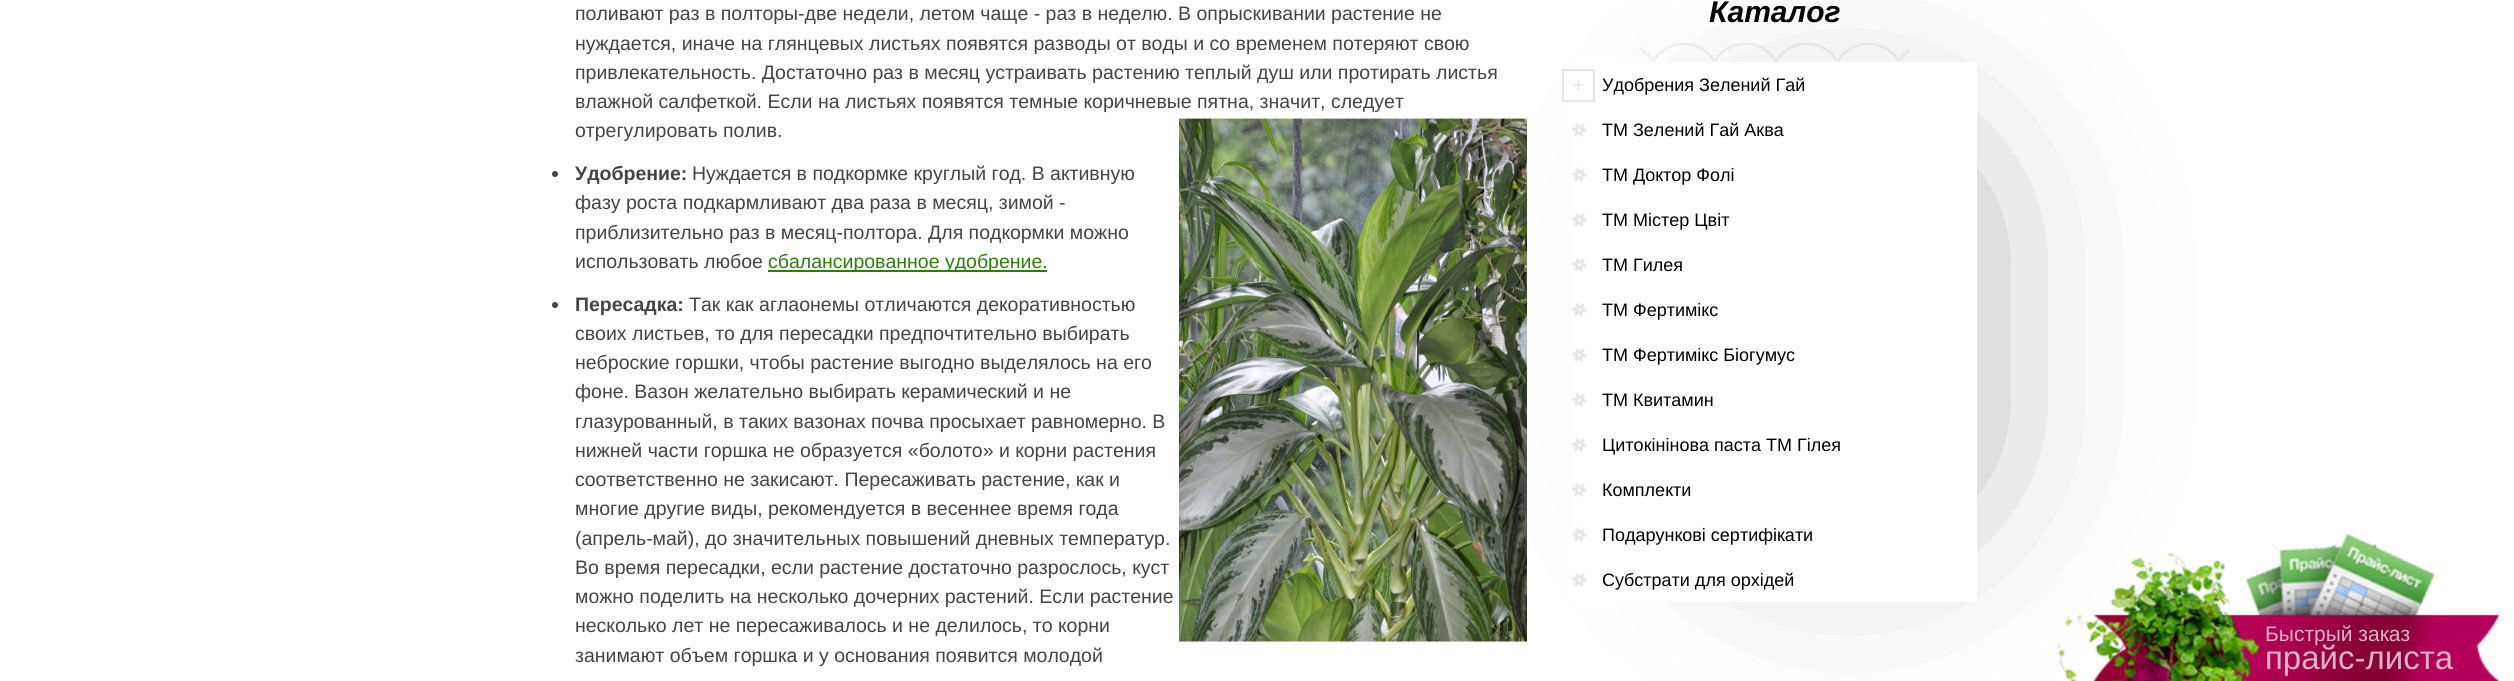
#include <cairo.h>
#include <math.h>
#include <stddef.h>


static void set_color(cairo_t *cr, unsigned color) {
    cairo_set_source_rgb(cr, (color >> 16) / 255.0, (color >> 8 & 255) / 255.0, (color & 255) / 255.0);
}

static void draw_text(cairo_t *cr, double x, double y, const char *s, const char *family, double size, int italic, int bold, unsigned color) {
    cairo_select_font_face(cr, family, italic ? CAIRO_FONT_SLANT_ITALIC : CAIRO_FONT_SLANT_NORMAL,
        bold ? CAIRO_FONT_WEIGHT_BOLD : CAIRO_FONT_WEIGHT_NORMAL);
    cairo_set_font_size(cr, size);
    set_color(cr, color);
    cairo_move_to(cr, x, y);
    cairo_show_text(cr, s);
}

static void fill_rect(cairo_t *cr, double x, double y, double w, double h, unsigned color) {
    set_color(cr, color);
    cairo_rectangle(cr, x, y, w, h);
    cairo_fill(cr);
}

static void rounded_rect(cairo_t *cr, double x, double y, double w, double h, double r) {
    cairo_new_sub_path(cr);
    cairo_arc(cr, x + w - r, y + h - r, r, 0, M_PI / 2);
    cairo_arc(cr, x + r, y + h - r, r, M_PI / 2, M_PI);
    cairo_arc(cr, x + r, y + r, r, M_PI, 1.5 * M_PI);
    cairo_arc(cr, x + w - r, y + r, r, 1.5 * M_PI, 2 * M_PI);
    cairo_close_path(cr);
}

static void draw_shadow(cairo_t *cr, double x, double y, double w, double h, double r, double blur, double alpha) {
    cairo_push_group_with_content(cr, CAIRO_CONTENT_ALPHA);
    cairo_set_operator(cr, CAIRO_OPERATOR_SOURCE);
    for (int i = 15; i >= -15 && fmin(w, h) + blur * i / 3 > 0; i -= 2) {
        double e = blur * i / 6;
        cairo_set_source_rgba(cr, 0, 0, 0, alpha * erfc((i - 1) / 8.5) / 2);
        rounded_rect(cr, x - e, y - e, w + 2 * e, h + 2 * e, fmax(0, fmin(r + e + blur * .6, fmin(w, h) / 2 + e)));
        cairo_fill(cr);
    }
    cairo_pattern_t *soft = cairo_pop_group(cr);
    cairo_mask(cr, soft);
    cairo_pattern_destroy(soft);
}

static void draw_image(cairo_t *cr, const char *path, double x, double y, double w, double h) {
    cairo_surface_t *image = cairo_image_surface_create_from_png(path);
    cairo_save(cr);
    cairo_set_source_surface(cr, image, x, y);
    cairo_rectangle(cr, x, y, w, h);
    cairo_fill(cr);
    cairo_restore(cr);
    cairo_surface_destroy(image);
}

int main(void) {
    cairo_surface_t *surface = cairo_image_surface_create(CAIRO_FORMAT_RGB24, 2514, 681);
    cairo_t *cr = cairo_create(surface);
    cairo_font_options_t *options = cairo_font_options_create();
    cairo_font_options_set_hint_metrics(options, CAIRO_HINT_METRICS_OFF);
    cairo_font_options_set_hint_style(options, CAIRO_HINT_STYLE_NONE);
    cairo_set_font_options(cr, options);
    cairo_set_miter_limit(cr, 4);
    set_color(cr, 0xFFFFFF);
    cairo_paint(cr);
    draw_text(cr, 575, 20, "поливают раз в полторы-две недели, летом чаще - раз в неделю. В опрыскивании растение не", "Liberation Sans", 19.5, 0, 0, 0x444444);
    draw_text(cr, 575, 50, "нуждается, иначе на глянцевых листьях появятся разводы от воды и со временем потеряют свою", "Liberation Sans", 19.5, 0, 0, 0x444444);
    draw_text(cr, 575, 79, "привлекательность. Достаточно раз в месяц устраивать растению теплый душ или протирать листья", "Liberation Sans", 19.5, 0, 0, 0x444444);
    draw_text(cr, 575, 108, "влажной салфеткой. Если на листьях появятся темные коричневые пятна, значит, следует", "Liberation Sans", 19.5, 0, 0, 0x444444);
    draw_text(cr, 575, 137, "отрегулировать полив.", "Liberation Sans", 19.5, 0, 0, 0x444444);
    draw_image(cr, "assets/img2.png", 1639, 43, 271, 18);
    cairo_save(cr);
    cairo_set_fill_rule(cr, CAIRO_FILL_RULE_EVEN_ODD);
    cairo_new_path(cr);
    cairo_move_to(cr, 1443, 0);
    cairo_line_to(cr, 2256, 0);
    cairo_line_to(cr, 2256, 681);
    cairo_line_to(cr, 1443, 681);
    cairo_close_path(cr);
    cairo_move_to(cr, 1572, 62);
    cairo_line_to(cr, 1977, 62);
    cairo_line_to(cr, 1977, 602);
    cairo_line_to(cr, 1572, 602);
    cairo_close_path(cr);
    cairo_clip(cr);
    set_color(cr, 0x000000);
    draw_shadow(cr, 1782, 197, 135, 270, 0, 112.5, 0.5);
    cairo_restore(cr);
    draw_image(cr, "assets/img1.png", 1179, 117, 348, 525);
    cairo_arc(cr, 555, 174, 3, 0, 2 * M_PI);
    cairo_fill(cr);
    draw_text(cr, 575, 180, "Удобрение:", "Liberation Sans", 19.5, 0, 1, 0x444444);
    draw_text(cr, 692, 180, "Нуждается в подкормке круглый год. В активную", "Liberation Sans", 19.5, 0, 0, 0x444444);
    draw_text(cr, 575, 209, "фазу роста подкармливают два раза в месяц, зимой -", "Liberation Sans", 19.5, 0, 0, 0x444444);
    draw_text(cr, 575, 239, "приблизительно раз в месяц-полтора. Для подкормки можно", "Liberation Sans", 19.5, 0, 0, 0x444444);
    draw_text(cr, 575, 268, "использовать любое", "Liberation Sans", 19.5, 0, 0, 0x444444);
    fill_rect(cr, 768, 270, 279, 2, 0x2C7F06);
    draw_text(cr, 768, 268, "сбалансированное удобрение.", "Liberation Sans", 19.5, 0, 0, 0x2C7F06);
    set_color(cr, 0x444444);
    cairo_new_path(cr);
    cairo_arc(cr, 555, 305, 3, 0, 2 * M_PI);
    cairo_fill(cr);
    draw_text(cr, 575, 311, "Пересадка:", "Liberation Sans", 19.5, 0, 1, 0x444444);
    draw_text(cr, 689, 311, "Так как аглаонемы отличаются декоративностью", "Liberation Sans", 19.5, 0, 0, 0x444444);
    draw_text(cr, 575, 340, "своих листьев, то для пересадки предпочтительно выбирать", "Liberation Sans", 19.5, 0, 0, 0x444444);
    draw_text(cr, 575, 369, "неброские горшки, чтобы растение выгодно выделялось на его", "Liberation Sans", 19.5, 0, 0, 0x444444);
    draw_text(cr, 575, 398, "фоне. Вазон желательно выбирать керамический и не", "Liberation Sans", 19.5, 0, 0, 0x444444);
    draw_text(cr, 575, 428, "глазурованный, в таких вазонах почва просыхает равномерно. В", "Liberation Sans", 19.5, 0, 0, 0x444444);
    draw_text(cr, 575, 457, "нижней части горшка не образуется «болото» и корни растения", "Liberation Sans", 19.5, 0, 0, 0x444444);
    draw_text(cr, 575, 486, "соответственно не закисают. Пересаживать растение, как и", "Liberation Sans", 19.5, 0, 0, 0x444444);
    draw_text(cr, 575, 515, "многие другие виды, рекомендуется в весеннее время года", "Liberation Sans", 19.5, 0, 0, 0x444444);
    draw_text(cr, 575, 545, "(апрель-май), до значительных повышений дневных температур.", "Liberation Sans", 19.5, 0, 0, 0x444444);
    draw_text(cr, 575, 574, "Во время пересадки, если растение достаточно разрослось, куст", "Liberation Sans", 19.5, 0, 0, 0x444444);
    draw_text(cr, 575, 603, "можно поделить на несколько дочерних растений. Если растение", "Liberation Sans", 19.5, 0, 0, 0x444444);
    draw_text(cr, 575, 632, "несколько лет не пересаживалось и не делилось, то корни", "Liberation Sans", 19.5, 0, 0, 0x444444);
    draw_text(cr, 575, 662, "занимают объем горшка и у основания появится молодой", "Liberation Sans", 19.5, 0, 0, 0x444444);
    draw_text(cr, 1709, 22, "Каталог", "Liberation Sans", 30, 1, 1, 0x000000);
    cairo_rectangle(cr, 1563, 70, 31, 31);
    set_color(cr, 0xE5E5E5);
    cairo_stroke(cr);
    draw_text(cr, 1572, 92, "+", "Liberation Sans", 21, 0, 0, 0xE5E5E5);
    draw_text(cr, 1602, 91, "Удобрения Зелений Гай", "Liberation Sans", 18, 0, 0, 0x000000);
    draw_image(cr, "assets/img3.png", 1572, 122, 15, 15);
    draw_text(cr, 1602, 136, "ТМ Зелений Гай Аква", "Liberation Sans", 18, 0, 0, 0x000000);
    draw_image(cr, "assets/img3.png", 1572, 167, 15, 15);
    draw_text(cr, 1602, 181, "ТМ Доктор Фолі", "Liberation Sans", 18, 0, 0, 0x000000);
    draw_image(cr, "assets/img3.png", 1572, 212, 15, 15);
    draw_text(cr, 1602, 226, "ТМ Містер Цвіт", "Liberation Sans", 18, 0, 0, 0x000000);
    draw_image(cr, "assets/img3.png", 1572, 257, 15, 15);
    draw_text(cr, 1602, 271, "ТМ Гилея", "Liberation Sans", 18, 0, 0, 0x000000);
    draw_image(cr, "assets/img3.png", 1572, 302, 15, 15);
    draw_text(cr, 1602, 316, "ТМ Фертимікс", "Liberation Sans", 18, 0, 0, 0x000000);
    draw_image(cr, "assets/img3.png", 1572, 347, 15, 15);
    draw_text(cr, 1602, 361, "ТМ Фертимікс Біогумус", "Liberation Sans", 18, 0, 0, 0x000000);
    draw_image(cr, "assets/img3.png", 1572, 392, 15, 15);
    draw_text(cr, 1602, 406, "ТМ Квитамин", "Liberation Sans", 18, 0, 0, 0x000000);
    draw_image(cr, "assets/img3.png", 1572, 437, 15, 15);
    draw_text(cr, 1602, 451, "Цитокінінова паста ТМ Гілея", "Liberation Sans", 18, 0, 0, 0x000000);
    draw_image(cr, "assets/img3.png", 1572, 482, 15, 15);
    draw_text(cr, 1602, 496, "Комплекти", "Liberation Sans", 18, 0, 0, 0x000000);
    draw_image(cr, "assets/img3.png", 1572, 527, 15, 15);
    draw_text(cr, 1602, 541, "Подарункові сертифікати", "Liberation Sans", 18, 0, 0, 0x000000);
    draw_image(cr, "assets/img3.png", 1572, 572, 15, 15);
    draw_text(cr, 1602, 586, "Субстрати для орхідей", "Liberation Sans", 18, 0, 0, 0x000000);
    draw_image(cr, "assets/img4.png", 2057, 533, 442, 148);
    draw_text(cr, 2265, 641, "Быстрый заказ", "Liberation Sans", 21, 0, 0, 0xE0B3C6);
    draw_text(cr, 2265, 669, "прайс-листа", "Liberation Sans", 33, 0, 0, 0xE0B3C6);
    cairo_surface_write_to_png(surface, "output.png");
    cairo_font_options_destroy(options);
    cairo_destroy(cr);
    cairo_surface_destroy(surface);
    return 0;
}
